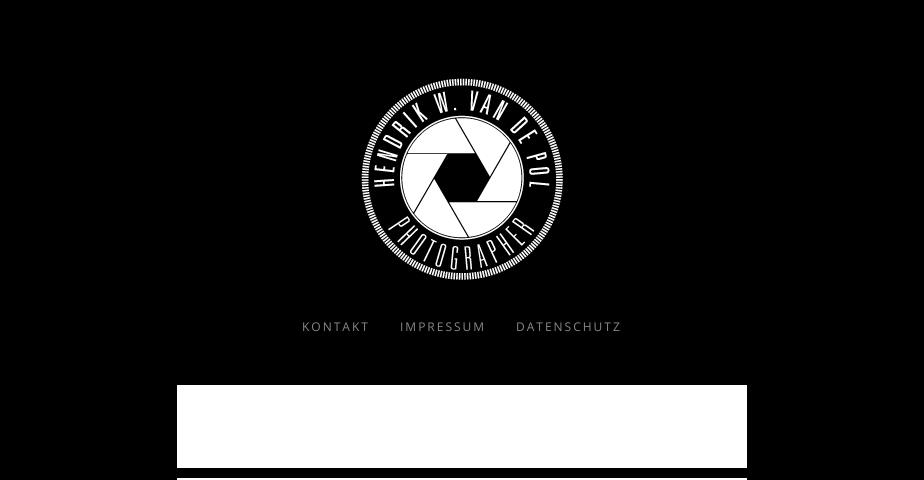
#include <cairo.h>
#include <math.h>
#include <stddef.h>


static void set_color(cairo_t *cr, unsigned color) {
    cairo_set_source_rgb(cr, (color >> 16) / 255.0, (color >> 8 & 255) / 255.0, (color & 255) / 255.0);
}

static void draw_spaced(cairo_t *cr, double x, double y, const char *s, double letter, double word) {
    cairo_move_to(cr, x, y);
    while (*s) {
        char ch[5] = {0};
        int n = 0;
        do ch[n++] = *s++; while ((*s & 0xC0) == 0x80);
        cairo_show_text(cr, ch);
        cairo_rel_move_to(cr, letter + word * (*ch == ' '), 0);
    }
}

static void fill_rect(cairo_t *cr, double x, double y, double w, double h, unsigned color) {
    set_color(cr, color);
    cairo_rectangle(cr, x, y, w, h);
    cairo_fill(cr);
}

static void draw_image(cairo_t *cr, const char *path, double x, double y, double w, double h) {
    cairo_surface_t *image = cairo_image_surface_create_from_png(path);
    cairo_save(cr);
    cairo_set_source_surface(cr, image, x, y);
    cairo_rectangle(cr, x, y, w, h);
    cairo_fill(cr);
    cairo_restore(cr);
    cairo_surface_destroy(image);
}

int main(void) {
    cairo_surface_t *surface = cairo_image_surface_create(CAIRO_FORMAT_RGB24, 924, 480);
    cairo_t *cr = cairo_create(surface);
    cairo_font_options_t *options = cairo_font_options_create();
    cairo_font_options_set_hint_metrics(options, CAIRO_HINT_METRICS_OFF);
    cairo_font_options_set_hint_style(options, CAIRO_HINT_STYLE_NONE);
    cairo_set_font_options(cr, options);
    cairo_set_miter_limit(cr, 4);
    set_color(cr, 0x000000);
    cairo_paint(cr);
    draw_image(cr, "assets/img1.png", 361, 78, 202, 202);
    cairo_select_font_face(cr, "Open Sans", CAIRO_FONT_SLANT_NORMAL, CAIRO_FONT_WEIGHT_NORMAL);
    cairo_set_font_size(cr, 12);
    set_color(cr, 0x888888);
    draw_spaced(cr, 302, 331, "KONTAKT", 2, 0);
    draw_spaced(cr, 400, 331, "IMPRESSUM", 2, 0);
    draw_spaced(cr, 516, 331, "DATENSCHUTZ", 2, 0);
    fill_rect(cr, 177, 385, 570, 83, 0xFFFFFF);
    fill_rect(cr, 177, 478, 570, 2, 0xFFFFFF);
    cairo_surface_write_to_png(surface, "output.png");
    cairo_font_options_destroy(options);
    cairo_destroy(cr);
    cairo_surface_destroy(surface);
    return 0;
}
